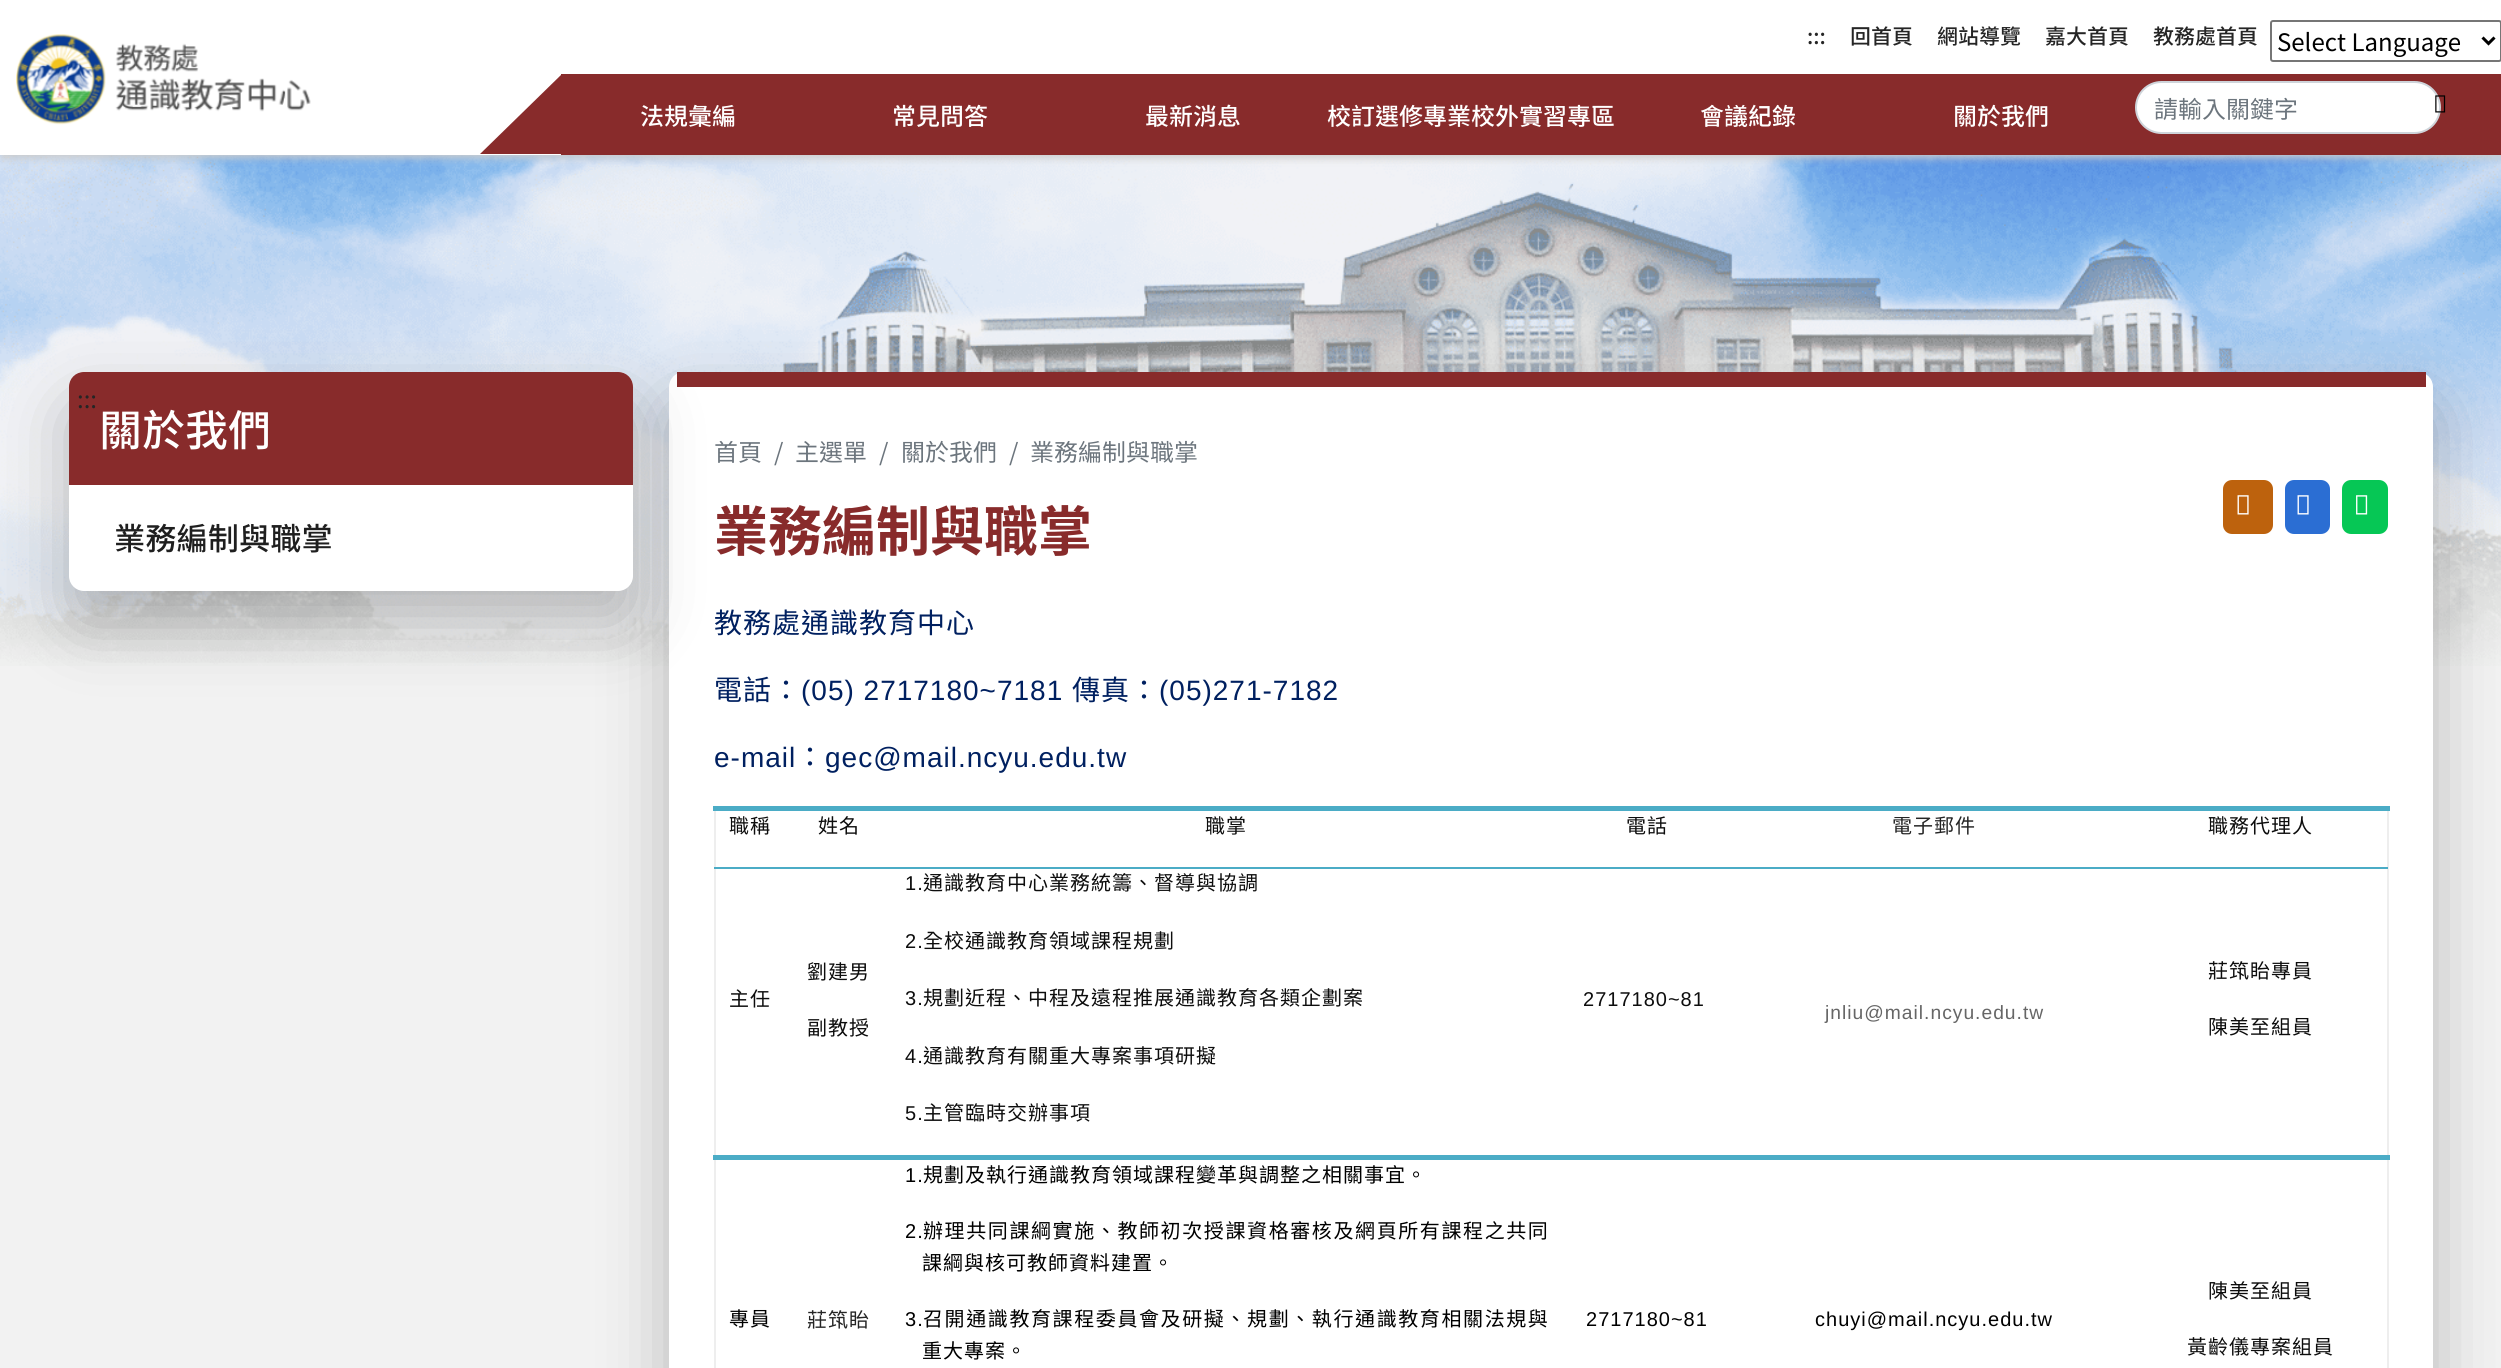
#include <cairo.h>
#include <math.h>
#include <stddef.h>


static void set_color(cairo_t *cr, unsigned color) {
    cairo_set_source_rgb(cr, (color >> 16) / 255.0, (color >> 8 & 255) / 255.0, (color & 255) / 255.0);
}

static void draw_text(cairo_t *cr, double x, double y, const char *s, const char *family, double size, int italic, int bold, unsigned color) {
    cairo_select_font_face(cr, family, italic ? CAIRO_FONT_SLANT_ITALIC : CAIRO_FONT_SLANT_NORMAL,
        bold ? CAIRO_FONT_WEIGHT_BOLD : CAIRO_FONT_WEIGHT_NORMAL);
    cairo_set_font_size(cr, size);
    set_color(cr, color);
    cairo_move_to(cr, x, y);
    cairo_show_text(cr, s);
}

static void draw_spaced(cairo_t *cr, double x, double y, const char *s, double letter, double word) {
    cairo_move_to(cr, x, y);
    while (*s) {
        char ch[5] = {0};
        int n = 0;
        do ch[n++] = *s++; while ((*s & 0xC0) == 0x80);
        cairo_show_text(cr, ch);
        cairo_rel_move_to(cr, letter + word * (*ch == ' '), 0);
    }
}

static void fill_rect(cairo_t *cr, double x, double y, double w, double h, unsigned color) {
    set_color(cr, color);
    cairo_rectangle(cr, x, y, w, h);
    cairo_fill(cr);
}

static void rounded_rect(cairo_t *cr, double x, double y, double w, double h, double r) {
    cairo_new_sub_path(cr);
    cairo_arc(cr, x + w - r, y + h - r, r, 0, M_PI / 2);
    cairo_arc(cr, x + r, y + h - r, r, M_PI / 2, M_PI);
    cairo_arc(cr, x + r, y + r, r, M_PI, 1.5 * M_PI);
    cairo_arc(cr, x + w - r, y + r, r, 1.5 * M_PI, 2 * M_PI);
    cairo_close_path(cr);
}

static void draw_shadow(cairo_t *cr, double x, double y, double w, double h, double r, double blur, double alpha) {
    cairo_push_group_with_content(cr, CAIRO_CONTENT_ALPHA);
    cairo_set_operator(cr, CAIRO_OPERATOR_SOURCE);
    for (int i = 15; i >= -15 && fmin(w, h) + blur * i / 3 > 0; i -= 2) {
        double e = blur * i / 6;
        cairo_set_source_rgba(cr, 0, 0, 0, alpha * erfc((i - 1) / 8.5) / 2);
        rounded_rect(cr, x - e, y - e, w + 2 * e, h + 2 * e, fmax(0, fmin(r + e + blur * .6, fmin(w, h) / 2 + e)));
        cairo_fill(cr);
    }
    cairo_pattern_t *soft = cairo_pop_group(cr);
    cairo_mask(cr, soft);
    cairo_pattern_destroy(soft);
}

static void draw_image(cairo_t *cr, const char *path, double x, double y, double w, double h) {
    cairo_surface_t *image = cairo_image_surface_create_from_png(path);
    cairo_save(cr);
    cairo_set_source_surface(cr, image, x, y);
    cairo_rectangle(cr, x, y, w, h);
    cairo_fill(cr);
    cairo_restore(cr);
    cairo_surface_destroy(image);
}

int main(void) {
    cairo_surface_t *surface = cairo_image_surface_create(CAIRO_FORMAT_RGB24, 2501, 1368);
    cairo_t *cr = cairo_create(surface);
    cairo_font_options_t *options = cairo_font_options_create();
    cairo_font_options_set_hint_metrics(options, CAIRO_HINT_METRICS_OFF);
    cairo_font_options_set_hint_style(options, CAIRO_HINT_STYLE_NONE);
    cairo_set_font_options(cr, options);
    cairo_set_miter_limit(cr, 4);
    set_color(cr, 0xF2F2F2);
    cairo_paint(cr);
    draw_image(cr, "assets/img3.png", 0, 155, 2501, 511);
    set_color(cr, 0xCCCCCC);
    draw_shadow(cr, 2, 3, 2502, 155, 0, 4, 1);
    fill_rect(cr, 0, 0, 2501, 155, 0xFFFFFF);
    draw_image(cr, "assets/img1.png", 16, 34, 295, 91);
    draw_text(cr, 1807, 44, ":::", "Noto Sans TC Medium", 21, 0, 0, 0x252525);
    draw_text(cr, 1850, 44, "回首頁", "Noto Sans TC Medium", 21, 0, 0, 0x252525);
    draw_text(cr, 1937, 44, "網站導覽", "Noto Sans TC Medium", 21, 0, 0, 0x252525);
    draw_text(cr, 2045, 44, "嘉大首頁", "Noto Sans TC Medium", 21, 0, 0, 0x252525);
    draw_text(cr, 2153, 44, "教務處首頁", "Noto Sans TC Medium", 21, 0, 0, 0x252525);
    rounded_rect(cr, 2271, 21, 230, 40, 2);
    set_color(cr, 0x767676);
    cairo_stroke(cr);
    cairo_new_path(cr);
    cairo_move_to(cr, 2482.5, 37.5);
    cairo_line_to(cr, 2488.5, 43.5);
    cairo_line_to(cr, 2494.5, 37.5);
    set_color(cr, 0x000000);
    cairo_set_line_width(cr, 3);
    cairo_stroke(cr);
    draw_text(cr, 2277, 51, "Select Language", "Noto Sans TC", 24, 0, 0, 0x000000);
    fill_rect(cr, 561, 74, 1940, 81, 0x882B2B);
    cairo_new_path(cr);
    cairo_move_to(cr, 562, 74);
    cairo_line_to(cr, 562, 154);
    cairo_line_to(cr, 480, 154);
    cairo_close_path(cr);
    cairo_fill(cr);
    draw_text(cr, 640, 125, "法規彙編", "Noto Sans TC Medium", 24, 0, 0, 0xFFFFFF);
    draw_text(cr, 892, 125, "常見問答", "Noto Sans TC Medium", 24, 0, 0, 0xFFFFFF);
    draw_text(cr, 1145, 125, "最新消息", "Noto Sans TC Medium", 24, 0, 0, 0xFFFFFF);
    draw_text(cr, 1327, 125, "校訂選修專業校外實習專區", "Noto Sans TC Medium", 24, 0, 0, 0xFFFFFF);
    draw_text(cr, 1700, 125, "會議紀錄", "Noto Sans TC Medium", 24, 0, 0, 0xFFFFFF);
    draw_text(cr, 1953, 125, "關於我們", "Noto Sans TC Medium", 24, 0, 0, 0xFFFFFF);
    rounded_rect(cr, 2136, 82, 304, 51, 25.5);
    cairo_fill_preserve(cr);
    set_color(cr, 0xCED4DA);
    cairo_set_line_width(cr, 2);
    cairo_stroke(cr);
    draw_text(cr, 2154, 118, "請輸入關鍵字", "Noto Sans TC", 24, 0, 0, 0x6C757D);
    draw_image(cr, "assets/img2.png", 2435, 95, 11, 18);
    set_color(cr, 0x000000);
    draw_shadow(cr, 669, 404, 1764, 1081, 15, 34, 0.25);
    set_color(cr, 0xFFFFFF);
    rounded_rect(cr, 669, 372, 1764, 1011, 15);
    cairo_fill(cr);
    fill_rect(cr, 677, 372, 1749, 15, 0x882B2B);
    set_color(cr, 0x000000);
    draw_shadow(cr, 69, 404, 564, 219, 15, 34, 0.25);
    set_color(cr, 0xFFFFFF);
    rounded_rect(cr, 69, 372, 564, 219, 15);
    cairo_fill(cr);
    set_color(cr, 0x882B2B);
    cairo_new_path(cr);
    cairo_move_to(cr, 84, 372);
    cairo_line_to(cr, 618, 372);
    cairo_curve_to(cr, 626.5, 372, 633, 378.5, 633, 387);
    cairo_line_to(cr, 633, 485);
    cairo_line_to(cr, 69, 485);
    cairo_line_to(cr, 69, 387);
    cairo_curve_to(cr, 69, 378.5, 75.5, 372, 84, 372);
    cairo_close_path(cr);
    cairo_fill(cr);
    draw_text(cr, 77, 408, ":::", "Noto Sans TC", 24, 0, 0, 0x252525);
    draw_text(cr, 99, 446, "關於我們", "Noto Sans TC Medium", 43, 0, 0, 0xFFFFFF);
    draw_text(cr, 114, 550, "業務編制與職掌", "Noto Sans TC Medium", 31.25, 0, 0, 0x1F1F1F);
    draw_text(cr, 714, 461, "首頁", "Noto Sans TC", 24, 0, 0, 0x6C757D);
    draw_text(cr, 774, 461, "/", "Noto Sans TC", 24, 0, 0, 0x6C757D);
    draw_text(cr, 795, 461, "主選單", "Noto Sans TC", 24, 0, 0, 0x6C757D);
    draw_text(cr, 879, 461, "/", "Noto Sans TC", 24, 0, 0, 0x6C757D);
    draw_text(cr, 901, 461, "關於我們", "Noto Sans TC", 24, 0, 0, 0x6C757D);
    draw_text(cr, 1009, 461, "/", "Noto Sans TC", 24, 0, 0, 0x6C757D);
    draw_text(cr, 1030, 461, "業務編制與職掌", "Noto Sans TC", 24, 0, 0, 0x6C757D);
    draw_text(cr, 714, 551, "業務編制與職掌", "Noto Sans TC Thin", 54, 0, 0, 0x882B2B);
    set_color(cr, 0xBD620D);
    rounded_rect(cr, 2223, 480, 50, 54, 9);
    cairo_fill(cr);
    draw_image(cr, "assets/img4.png", 2237, 495, 12, 20);
    set_color(cr, 0x2B6ED3);
    rounded_rect(cr, 2285, 480, 45, 54, 9);
    cairo_fill(cr);
    draw_image(cr, "assets/img5.png", 2297, 495, 12, 20);
    set_color(cr, 0x06C755);
    rounded_rect(cr, 2342, 480, 46, 54, 9);
    cairo_fill(cr);
    draw_image(cr, "assets/img6.png", 2356, 495, 12, 20);
    cairo_select_font_face(cr, "Noto Sans CJK TC", CAIRO_FONT_SLANT_NORMAL, CAIRO_FONT_WEIGHT_NORMAL);
    cairo_set_font_size(cr, 28);
    set_color(cr, 0x002060);
    draw_spaced(cr, 714, 633, "教務處通識教育中心", 1, 0);
    draw_spaced(cr, 714, 700, "電話：", 1, 0);
    cairo_select_font_face(cr, "Liberation Sans", CAIRO_FONT_SLANT_NORMAL, CAIRO_FONT_WEIGHT_NORMAL);
    draw_spaced(cr, 801, 700, "(05) 2717180~7181", 1, 0);
    cairo_select_font_face(cr, "Noto Sans CJK TC", CAIRO_FONT_SLANT_NORMAL, CAIRO_FONT_WEIGHT_NORMAL);
    draw_spaced(cr, 1072, 700, "傳真：", 1, 0);
    cairo_select_font_face(cr, "Liberation Sans", CAIRO_FONT_SLANT_NORMAL, CAIRO_FONT_WEIGHT_NORMAL);
    draw_spaced(cr, 1159, 700, "(05)271-7182", 1, 0);
    draw_spaced(cr, 714, 767, "e-mail", 1, 0);
    cairo_select_font_face(cr, "Noto Sans CJK TC", CAIRO_FONT_SLANT_NORMAL, CAIRO_FONT_WEIGHT_NORMAL);
    draw_spaced(cr, 796, 767, "：", 1, 0);
    cairo_select_font_face(cr, "Liberation Sans", CAIRO_FONT_SLANT_NORMAL, CAIRO_FONT_WEIGHT_NORMAL);
    draw_spaced(cr, 825, 767, "gec@mail.ncyu.edu.tw", 1, 0);
    cairo_select_font_face(cr, "Noto Sans CJK TC", CAIRO_FONT_SLANT_NORMAL, CAIRO_FONT_WEIGHT_NORMAL);
    cairo_set_font_size(cr, 20);
    set_color(cr, 0x0D0D0D);
    draw_spaced(cr, 729, 833, "職稱", 1, 0);
    draw_spaced(cr, 818, 833, "姓名", 1, 0);
    draw_spaced(cr, 1205, 833, "職掌", 1, 0);
    draw_spaced(cr, 1626, 833, "電話", 1, 0);
    set_color(cr, 0x252525);
    draw_spaced(cr, 1892, 833, "電子郵件", 1, 0);
    fill_rect(cr, 2387, 807, 2, 561, 0xEEEEEE);
    fill_rect(cr, 714, 807, 2, 561, 0xEEEEEE);
    fill_rect(cr, 714, 867, 1674, 2, 0x4BACC6);
    fill_rect(cr, 713, 806, 1677, 5, 0x4BACC6);
    set_color(cr, 0x0D0D0D);
    draw_spaced(cr, 2208, 833, "職務代理人", 1, 0);
    draw_spaced(cr, 729, 1006, "主任", 1, 0);
    draw_spaced(cr, 807, 979, "劉建男", 1, 0);
    draw_spaced(cr, 807, 1035, "副教授", 1, 0);
    cairo_select_font_face(cr, "Liberation Sans", CAIRO_FONT_SLANT_NORMAL, CAIRO_FONT_WEIGHT_NORMAL);
    draw_spaced(cr, 905, 890, "1.", 1, 0);
    cairo_select_font_face(cr, "Noto Sans CJK TC", CAIRO_FONT_SLANT_NORMAL, CAIRO_FONT_WEIGHT_NORMAL);
    draw_spaced(cr, 923, 890, "通識教育中心業務統籌、督導與協調", 1, 0);
    cairo_select_font_face(cr, "Liberation Sans", CAIRO_FONT_SLANT_NORMAL, CAIRO_FONT_WEIGHT_NORMAL);
    draw_spaced(cr, 905, 948, "2.", 1, 0);
    cairo_select_font_face(cr, "Noto Sans CJK TC", CAIRO_FONT_SLANT_NORMAL, CAIRO_FONT_WEIGHT_NORMAL);
    draw_spaced(cr, 923, 948, "全校通識教育領域課程規劃", 1, 0);
    cairo_select_font_face(cr, "Liberation Sans", CAIRO_FONT_SLANT_NORMAL, CAIRO_FONT_WEIGHT_NORMAL);
    draw_spaced(cr, 905, 1005, "3.", 1, 0);
    cairo_select_font_face(cr, "Noto Sans CJK TC", CAIRO_FONT_SLANT_NORMAL, CAIRO_FONT_WEIGHT_NORMAL);
    draw_spaced(cr, 923, 1005, "規劃近程、中程及遠程推展通識教育各類企劃案", 1, 0);
    cairo_select_font_face(cr, "Liberation Sans", CAIRO_FONT_SLANT_NORMAL, CAIRO_FONT_WEIGHT_NORMAL);
    draw_spaced(cr, 905, 1063, "4.", 1, 0);
    cairo_select_font_face(cr, "Noto Sans CJK TC", CAIRO_FONT_SLANT_NORMAL, CAIRO_FONT_WEIGHT_NORMAL);
    draw_spaced(cr, 923, 1063, "通識教育有關重大專案事項研擬", 1, 0);
    cairo_select_font_face(cr, "Liberation Sans", CAIRO_FONT_SLANT_NORMAL, CAIRO_FONT_WEIGHT_NORMAL);
    draw_spaced(cr, 905, 1120, "5.", 1, 0);
    cairo_select_font_face(cr, "Noto Sans CJK TC", CAIRO_FONT_SLANT_NORMAL, CAIRO_FONT_WEIGHT_NORMAL);
    draw_spaced(cr, 923, 1120, "主管臨時交辦事項", 1, 0);
    cairo_select_font_face(cr, "Liberation Sans", CAIRO_FONT_SLANT_NORMAL, CAIRO_FONT_WEIGHT_NORMAL);
    draw_spaced(cr, 1583, 1006, "2717180~81", 1, 0);
    fill_rect(cr, 713, 1155, 1677, 5, 0x4BACC6);
    cairo_select_font_face(cr, "Noto Sans CJK HK", CAIRO_FONT_SLANT_NORMAL, CAIRO_FONT_WEIGHT_NORMAL);
    set_color(cr, 0x0D0D0D);
    draw_spaced(cr, 2208, 978, "莊筑眙專員", 1, 0);
    cairo_select_font_face(cr, "Noto Sans CJK TC", CAIRO_FONT_SLANT_NORMAL, CAIRO_FONT_WEIGHT_NORMAL);
    draw_spaced(cr, 2208, 1034, "陳美至組員", 1, 0);
    cairo_select_font_face(cr, "Liberation Sans", CAIRO_FONT_SLANT_NORMAL, CAIRO_FONT_WEIGHT_NORMAL);
    cairo_set_font_size(cr, 19.25);
    set_color(cr, 0x666666);
    draw_spaced(cr, 1825, 1019, "jnliu@mail.ncyu.edu.tw", 1, 0);
    cairo_select_font_face(cr, "Noto Sans CJK HK", CAIRO_FONT_SLANT_NORMAL, CAIRO_FONT_WEIGHT_NORMAL);
    cairo_set_font_size(cr, 20);
    set_color(cr, 0x000000);
    draw_spaced(cr, 729, 1326, "專員", 1, 0);
    set_color(cr, 0x252525);
    draw_spaced(cr, 807, 1327, "莊筑眙", 1, 0);
    cairo_select_font_face(cr, "Liberation Sans", CAIRO_FONT_SLANT_NORMAL, CAIRO_FONT_WEIGHT_NORMAL);
    set_color(cr, 0x000000);
    draw_spaced(cr, 905, 1182, "1.", 1, 0);
    cairo_select_font_face(cr, "Noto Sans CJK TC", CAIRO_FONT_SLANT_NORMAL, CAIRO_FONT_WEIGHT_NORMAL);
    draw_spaced(cr, 923, 1182, "規劃及執行通識教育領域課程變革與調整之相關事宜。", 1, 0);
    cairo_select_font_face(cr, "Liberation Sans", CAIRO_FONT_SLANT_NORMAL, CAIRO_FONT_WEIGHT_NORMAL);
    draw_spaced(cr, 905, 1238, "2.", 1, 0);
    cairo_select_font_face(cr, "Noto Sans CJK TC", CAIRO_FONT_SLANT_NORMAL, CAIRO_FONT_WEIGHT_NORMAL);
    draw_spaced(cr, 923, 1238, "辦理共同課綱實施、教師初次授課資格審核及網頁所有課程之共同", 1.6, 0);
    draw_spaced(cr, 922, 1270, "課綱與核可教師資料建置。", 1, 0);
    cairo_select_font_face(cr, "Liberation Sans", CAIRO_FONT_SLANT_NORMAL, CAIRO_FONT_WEIGHT_NORMAL);
    draw_spaced(cr, 905, 1326, "3.", 1, 0);
    cairo_select_font_face(cr, "Noto Sans CJK TC", CAIRO_FONT_SLANT_NORMAL, CAIRO_FONT_WEIGHT_NORMAL);
    draw_spaced(cr, 923, 1326, "召開通識教育課程委員會及研擬、規劃、執行通識教育相關法規與", 1.6, 0);
    draw_spaced(cr, 922, 1358, "重大專案。", 1, 0);
    cairo_select_font_face(cr, "Liberation Sans", CAIRO_FONT_SLANT_NORMAL, CAIRO_FONT_WEIGHT_NORMAL);
    draw_spaced(cr, 1586, 1326, "2717180~81", 1, 0);
    draw_spaced(cr, 1815, 1326, "chuyi@mail.ncyu.edu.tw", 1, 0);
    cairo_select_font_face(cr, "Noto Sans CJK TC", CAIRO_FONT_SLANT_NORMAL, CAIRO_FONT_WEIGHT_NORMAL);
    set_color(cr, 0x0D0D0D);
    draw_spaced(cr, 2208, 1298, "陳美至組員", 1, 0);
    draw_spaced(cr, 2187, 1354, "黃齡儀專案", 1, 0);
    cairo_select_font_face(cr, "Noto Sans CJK HK", CAIRO_FONT_SLANT_NORMAL, CAIRO_FONT_WEIGHT_NORMAL);
    draw_spaced(cr, 2292, 1354, "組", 1, 0);
    cairo_select_font_face(cr, "Noto Sans CJK TC", CAIRO_FONT_SLANT_NORMAL, CAIRO_FONT_WEIGHT_NORMAL);
    draw_spaced(cr, 2313, 1354, "員", 1, 0);
    cairo_surface_write_to_png(surface, "output.png");
    cairo_font_options_destroy(options);
    cairo_destroy(cr);
    cairo_surface_destroy(surface);
    return 0;
}
